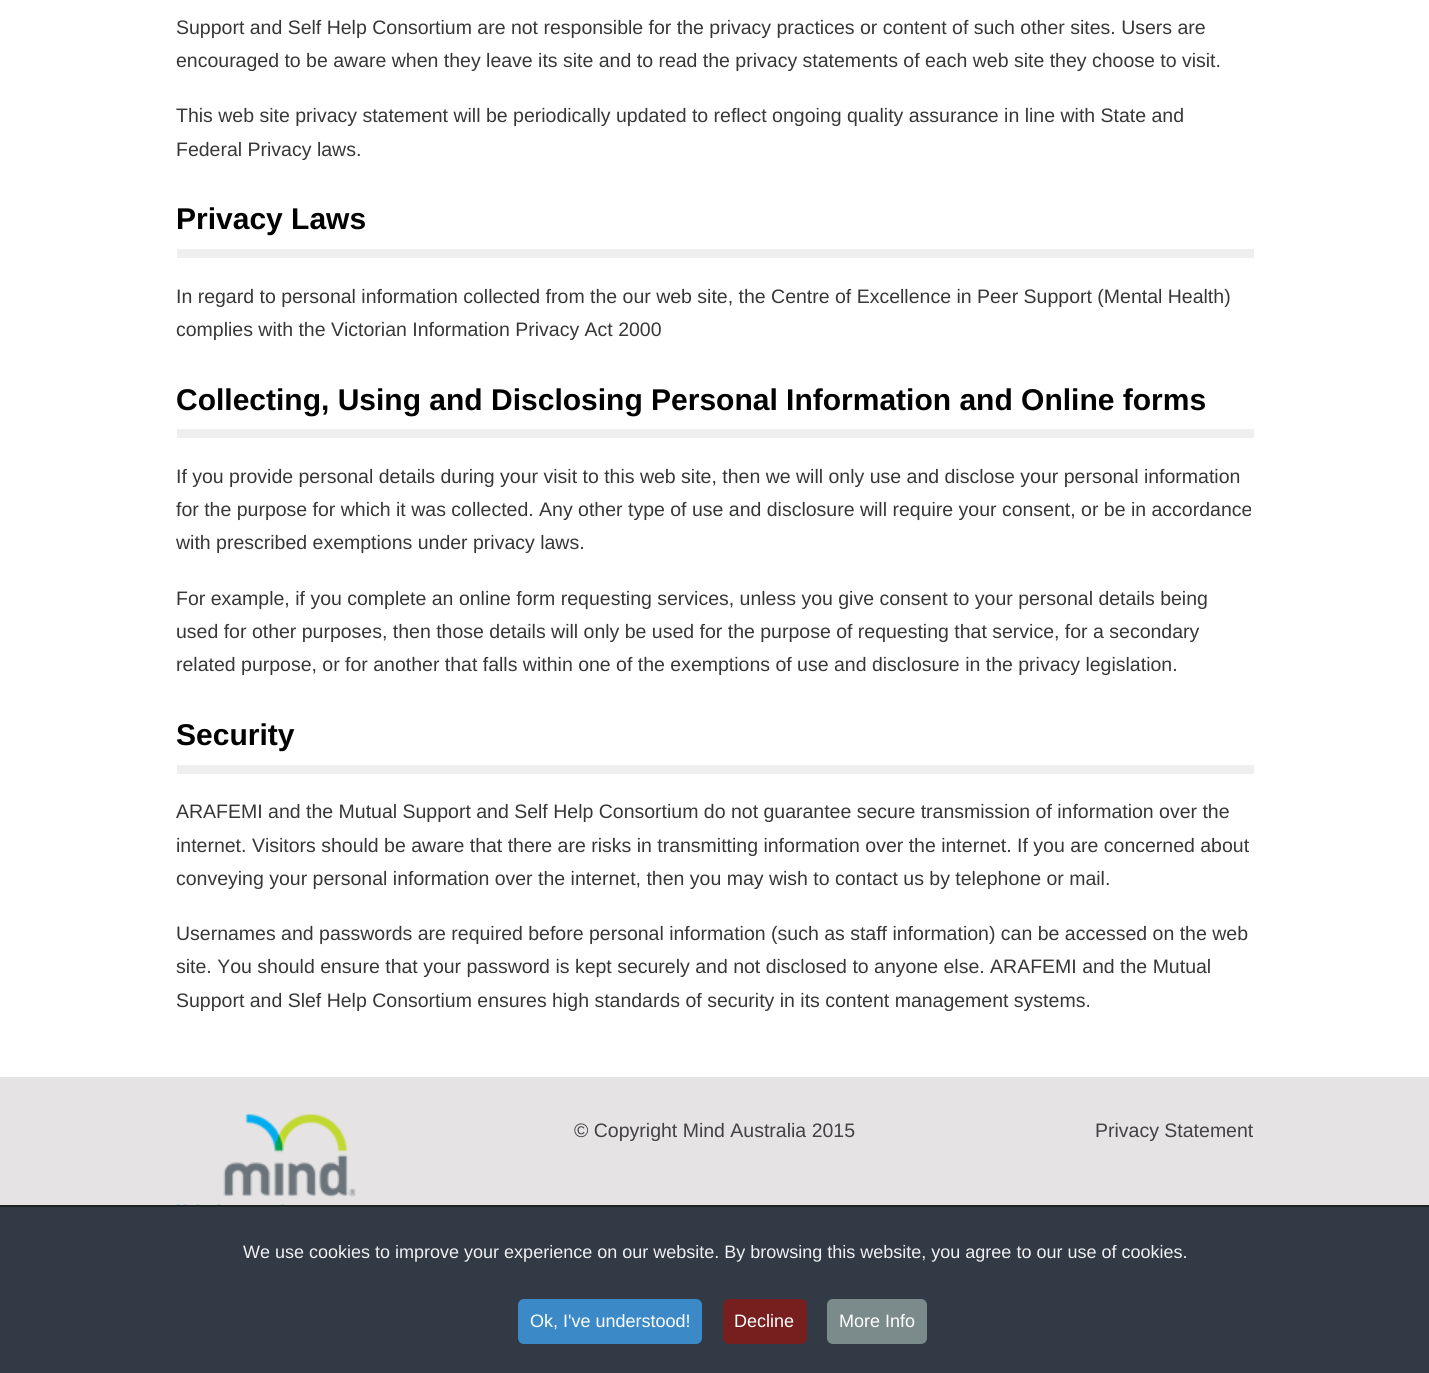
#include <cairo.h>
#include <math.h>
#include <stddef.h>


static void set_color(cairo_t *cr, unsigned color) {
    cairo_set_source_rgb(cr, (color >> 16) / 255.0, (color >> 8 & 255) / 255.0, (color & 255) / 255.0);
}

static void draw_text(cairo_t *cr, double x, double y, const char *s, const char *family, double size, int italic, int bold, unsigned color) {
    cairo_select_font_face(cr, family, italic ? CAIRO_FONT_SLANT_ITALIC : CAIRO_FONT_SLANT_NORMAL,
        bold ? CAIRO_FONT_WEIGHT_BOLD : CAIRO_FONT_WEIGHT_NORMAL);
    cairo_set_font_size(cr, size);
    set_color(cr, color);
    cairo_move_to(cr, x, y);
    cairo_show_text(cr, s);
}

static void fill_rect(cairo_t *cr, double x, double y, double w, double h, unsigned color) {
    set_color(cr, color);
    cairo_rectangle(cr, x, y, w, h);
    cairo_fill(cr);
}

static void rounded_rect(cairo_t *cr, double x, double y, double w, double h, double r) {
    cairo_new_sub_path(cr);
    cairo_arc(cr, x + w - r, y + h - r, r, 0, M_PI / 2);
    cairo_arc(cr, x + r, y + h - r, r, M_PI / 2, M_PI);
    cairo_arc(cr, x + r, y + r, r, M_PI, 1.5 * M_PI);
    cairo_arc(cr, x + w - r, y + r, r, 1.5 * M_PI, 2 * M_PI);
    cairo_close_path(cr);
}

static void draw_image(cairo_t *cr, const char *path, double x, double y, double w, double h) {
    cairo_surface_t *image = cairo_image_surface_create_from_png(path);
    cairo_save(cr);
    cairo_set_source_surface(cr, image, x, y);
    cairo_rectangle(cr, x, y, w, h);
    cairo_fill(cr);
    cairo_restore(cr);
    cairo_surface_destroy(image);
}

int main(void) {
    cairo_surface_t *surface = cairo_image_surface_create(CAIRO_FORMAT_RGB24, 1429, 1373);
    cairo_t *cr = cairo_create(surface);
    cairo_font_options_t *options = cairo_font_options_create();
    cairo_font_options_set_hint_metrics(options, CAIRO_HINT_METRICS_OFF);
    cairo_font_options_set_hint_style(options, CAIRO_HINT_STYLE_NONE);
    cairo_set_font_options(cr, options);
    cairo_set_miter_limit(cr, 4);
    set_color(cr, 0xFFFFFF);
    cairo_paint(cr);
    draw_text(cr, 176, 34, "Support and Self Help Consortium are not responsible for the privacy practices or content of such other sites. Users are", "Liberation Sans", 19.5, 0, 0, 0x373737);
    draw_text(cr, 176, 67, "encouraged to be aware when they leave its site and to read the privacy statements of each web site they choose to visit.", "Liberation Sans", 19.5, 0, 0, 0x373737);
    draw_text(cr, 176, 122, "This web site privacy statement will be periodically updated to reflect ongoing quality assurance in line with State and", "Liberation Sans", 19.5, 0, 0, 0x373737);
    draw_text(cr, 176, 156, "Federal Privacy laws.", "Liberation Sans", 19.5, 0, 0, 0x373737);
    fill_rect(cr, 177, 249, 1077, 9, 0xEFEFEF);
    draw_text(cr, 176, 229, "Privacy Laws", "Liberation Sans", 30, 0, 1, 0x000000);
    draw_text(cr, 176, 303, "In regard to personal information collected from the our web site, the Centre of Excellence in Peer Support (Mental Health)", "Liberation Sans", 19.5, 0, 0, 0x373737);
    draw_text(cr, 176, 336, "complies with the Victorian Information Privacy Act 2000", "Liberation Sans", 19.5, 0, 0, 0x373737);
    fill_rect(cr, 177, 429, 1077, 9, 0xEFEFEF);
    draw_text(cr, 176, 410, "Collecting, Using and Disclosing Personal Information and Online forms", "Liberation Sans", 30, 0, 1, 0x000000);
    draw_text(cr, 176, 483, "If you provide personal details during your visit to this web site, then we will only use and disclose your personal information", "Liberation Sans", 19.5, 0, 0, 0x373737);
    draw_text(cr, 176, 516, "for the purpose for which it was collected. Any other type of use and disclosure will require your consent, or be in accordance", "Liberation Sans", 19.5, 0, 0, 0x373737);
    draw_text(cr, 176, 549, "with prescribed exemptions under privacy laws.", "Liberation Sans", 19.5, 0, 0, 0x373737);
    draw_text(cr, 176, 605, "For example, if you complete an online form requesting services, unless you give consent to your personal details being", "Liberation Sans", 19.5, 0, 0, 0x373737);
    draw_text(cr, 176, 638, "used for other purposes, then those details will only be used for the purpose of requesting that service, for a secondary", "Liberation Sans", 19.5, 0, 0, 0x373737);
    draw_text(cr, 176, 671, "related purpose, or for another that falls within one of the exemptions of use and disclosure in the privacy legislation.", "Liberation Sans", 19.5, 0, 0, 0x373737);
    fill_rect(cr, 177, 765, 1077, 9, 0xEFEFEF);
    draw_text(cr, 176, 745, "Security", "Liberation Sans", 30, 0, 1, 0x000000);
    draw_text(cr, 176, 818, "ARAFEMI and the Mutual Support and Self Help Consortium do not guarantee secure transmission of information over the", "Liberation Sans", 19.5, 0, 0, 0x373737);
    draw_text(cr, 176, 852, "internet. Visitors should be aware that there are risks in transmitting information over the internet. If you are concerned about", "Liberation Sans", 19.5, 0, 0, 0x373737);
    draw_text(cr, 176, 885, "conveying your personal information over the internet, then you may wish to contact us by telephone or mail.", "Liberation Sans", 19.5, 0, 0, 0x373737);
    draw_text(cr, 176, 940, "Usernames and passwords are required before personal information (such as staff information) can be accessed on the web", "Liberation Sans", 19.5, 0, 0, 0x373737);
    draw_text(cr, 176, 973, "site. You should ensure that your password is kept securely and not disclosed to anyone else. ARAFEMI and the Mutual", "Liberation Sans", 19.5, 0, 0, 0x373737);
    draw_text(cr, 176, 1007, "Support and Slef Help Consortium ensures high standards of security in its content management systems.", "Liberation Sans", 19.5, 0, 0, 0x373737);
    fill_rect(cr, 0, 1077, 1429, 128, 0xE5E3E3);
    draw_image(cr, "assets/img1.png", 177, 1114, 179, 91);
    draw_text(cr, 574, 1137, "© Copyright Mind Australia 2015", "Liberation Sans", 19.5, 0, 0, 0x414146);
    draw_text(cr, 1095, 1137, "Privacy Statement", "Liberation Sans", 19.5, 0, 0, 0x414146);
    fill_rect(cr, 0, 1207, 1429, 166, 0x323A45);
    fill_rect(cr, 0, 1205, 1429, 2, 0x202226);
    draw_text(cr, 243, 1258, "We use cookies to improve your experience on our website. By browsing this website, you agree to our use of cookies.", "Liberation Sans", 18, 0, 0, 0xF1F1F3);
    set_color(cr, 0x3B89C7);
    rounded_rect(cr, 518, 1299, 184, 45, 6);
    cairo_fill(cr);
    draw_text(cr, 530, 1327, "Ok, I've understood!", "Liberation Sans", 18, 0, 0, 0xFFFFFF);
    set_color(cr, 0x771F1F);
    rounded_rect(cr, 723, 1299, 84, 45, 6);
    cairo_fill(cr);
    draw_text(cr, 734, 1327, "Decline", "Liberation Sans", 18, 0, 0, 0xFFFFFF);
    set_color(cr, 0x7B8A8B);
    rounded_rect(cr, 827, 1299, 100, 45, 6);
    cairo_fill(cr);
    draw_text(cr, 839, 1327, "More Info", "Liberation Sans", 18, 0, 0, 0xFFFFFF);
    cairo_surface_write_to_png(surface, "output.png");
    cairo_font_options_destroy(options);
    cairo_destroy(cr);
    cairo_surface_destroy(surface);
    return 0;
}
